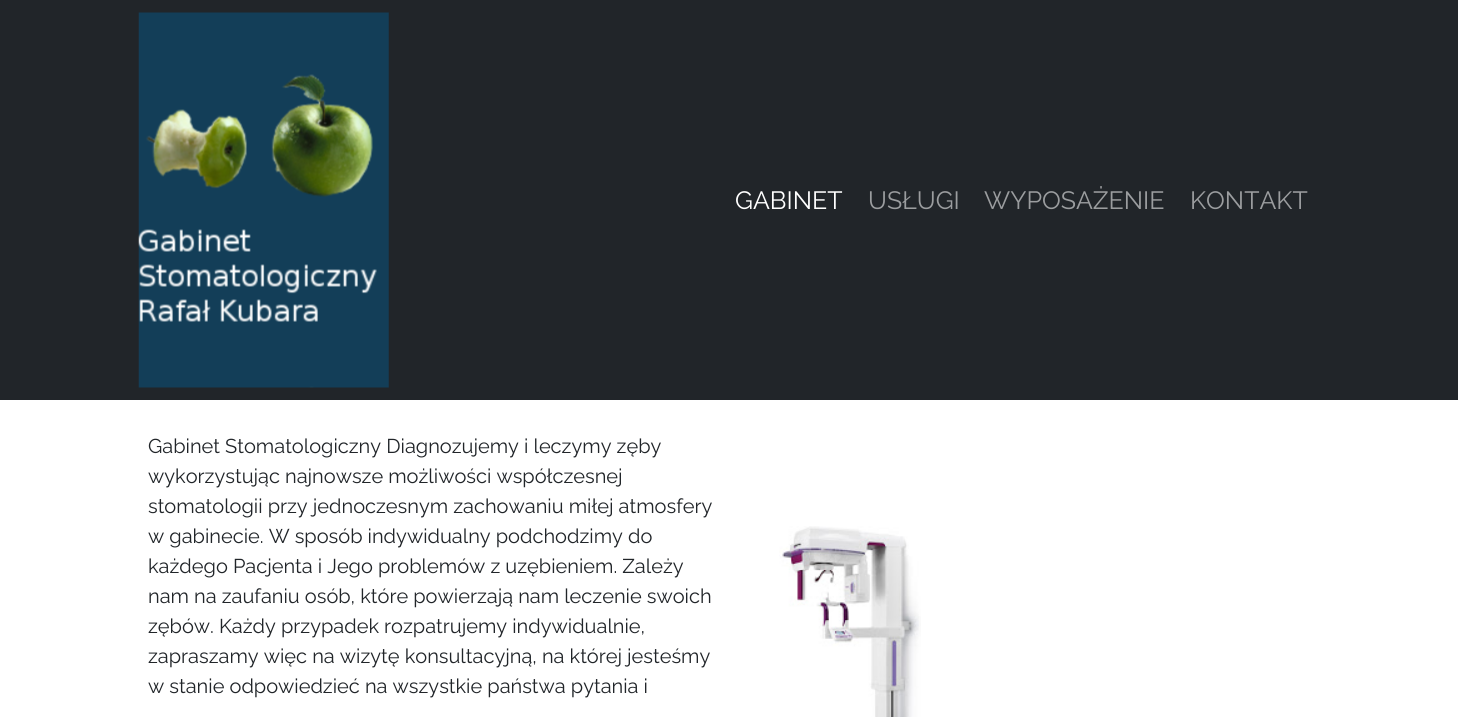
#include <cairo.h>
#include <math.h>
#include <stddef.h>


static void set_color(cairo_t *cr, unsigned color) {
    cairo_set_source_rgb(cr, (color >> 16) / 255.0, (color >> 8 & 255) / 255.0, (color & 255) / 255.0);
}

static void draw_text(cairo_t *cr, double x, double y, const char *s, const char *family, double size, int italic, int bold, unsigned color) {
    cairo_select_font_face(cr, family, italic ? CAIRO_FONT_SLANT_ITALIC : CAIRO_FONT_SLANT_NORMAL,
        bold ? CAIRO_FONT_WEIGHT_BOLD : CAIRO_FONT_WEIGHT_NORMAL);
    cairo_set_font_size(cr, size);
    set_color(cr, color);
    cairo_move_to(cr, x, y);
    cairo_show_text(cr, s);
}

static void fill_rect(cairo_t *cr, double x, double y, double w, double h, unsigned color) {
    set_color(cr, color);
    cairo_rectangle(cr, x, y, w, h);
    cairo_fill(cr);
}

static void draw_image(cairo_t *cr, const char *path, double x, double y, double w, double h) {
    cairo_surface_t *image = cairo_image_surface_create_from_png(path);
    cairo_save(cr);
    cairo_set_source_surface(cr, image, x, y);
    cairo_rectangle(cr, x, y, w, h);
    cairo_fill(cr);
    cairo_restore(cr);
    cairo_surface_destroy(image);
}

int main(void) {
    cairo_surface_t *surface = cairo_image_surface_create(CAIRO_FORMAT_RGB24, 1458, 717);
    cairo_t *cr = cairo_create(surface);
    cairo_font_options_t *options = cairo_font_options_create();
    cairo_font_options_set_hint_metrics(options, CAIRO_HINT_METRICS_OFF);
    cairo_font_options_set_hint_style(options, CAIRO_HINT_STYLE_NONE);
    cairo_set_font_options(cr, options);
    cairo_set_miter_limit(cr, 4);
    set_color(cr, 0xFFFFFF);
    cairo_paint(cr);
    fill_rect(cr, 0, 0, 1458, 400, 0x212529);
    draw_image(cr, "assets/img1.png", 138, 12, 251, 376);
    draw_text(cr, 735, 209, "GABINET", "Raleway", 25, 0, 0, 0xFFFFFF);
    draw_text(cr, 868, 209, "USŁUGI", "Raleway", 25, 0, 0, 0x9B9D9F);
    draw_text(cr, 984, 209, "WYPOSAŻENIE", "Raleway", 25, 0, 0, 0x9B9D9F);
    draw_text(cr, 1190, 209, "KONTAKT", "Raleway", 25, 0, 0, 0x9B9D9F);
    draw_text(cr, 148, 453, "Gabinet Stomatologiczny Diagnozujemy i leczymy zęby", "Raleway", 20, 0, 0, 0x212529);
    draw_text(cr, 148, 483, "wykorzystując najnowsze możliwości współczesnej", "Raleway", 20, 0, 0, 0x212529);
    draw_text(cr, 148, 513, "stomatologii przy jednoczesnym zachowaniu miłej atmosfery", "Raleway", 20, 0, 0, 0x212529);
    draw_text(cr, 148, 543, "w gabinecie. W sposób indywidualny podchodzimy do", "Raleway", 20, 0, 0, 0x212529);
    draw_text(cr, 148, 573, "każdego Pacjenta i Jego problemów z uzębieniem. Zależy", "Raleway", 20, 0, 0, 0x212529);
    draw_text(cr, 148, 603, "nam na zaufaniu osób, które powierzają nam leczenie swoich", "Raleway", 20, 0, 0, 0x212529);
    draw_text(cr, 148, 633, "zębów. Każdy przypadek rozpatrujemy indywidualnie,", "Raleway", 20, 0, 0, 0x212529);
    draw_text(cr, 148, 663, "zapraszamy więc na wizytę konsultacyjną, na której jesteśmy", "Raleway", 20, 0, 0, 0x212529);
    draw_text(cr, 148, 693, "w stanie odpowiedzieć na wszystkie państwa pytania i", "Raleway", 20, 0, 0, 0x212529);
    draw_image(cr, "assets/img2.png", 779, 526, 142, 191);
    cairo_surface_write_to_png(surface, "output.png");
    cairo_font_options_destroy(options);
    cairo_destroy(cr);
    cairo_surface_destroy(surface);
    return 0;
}
